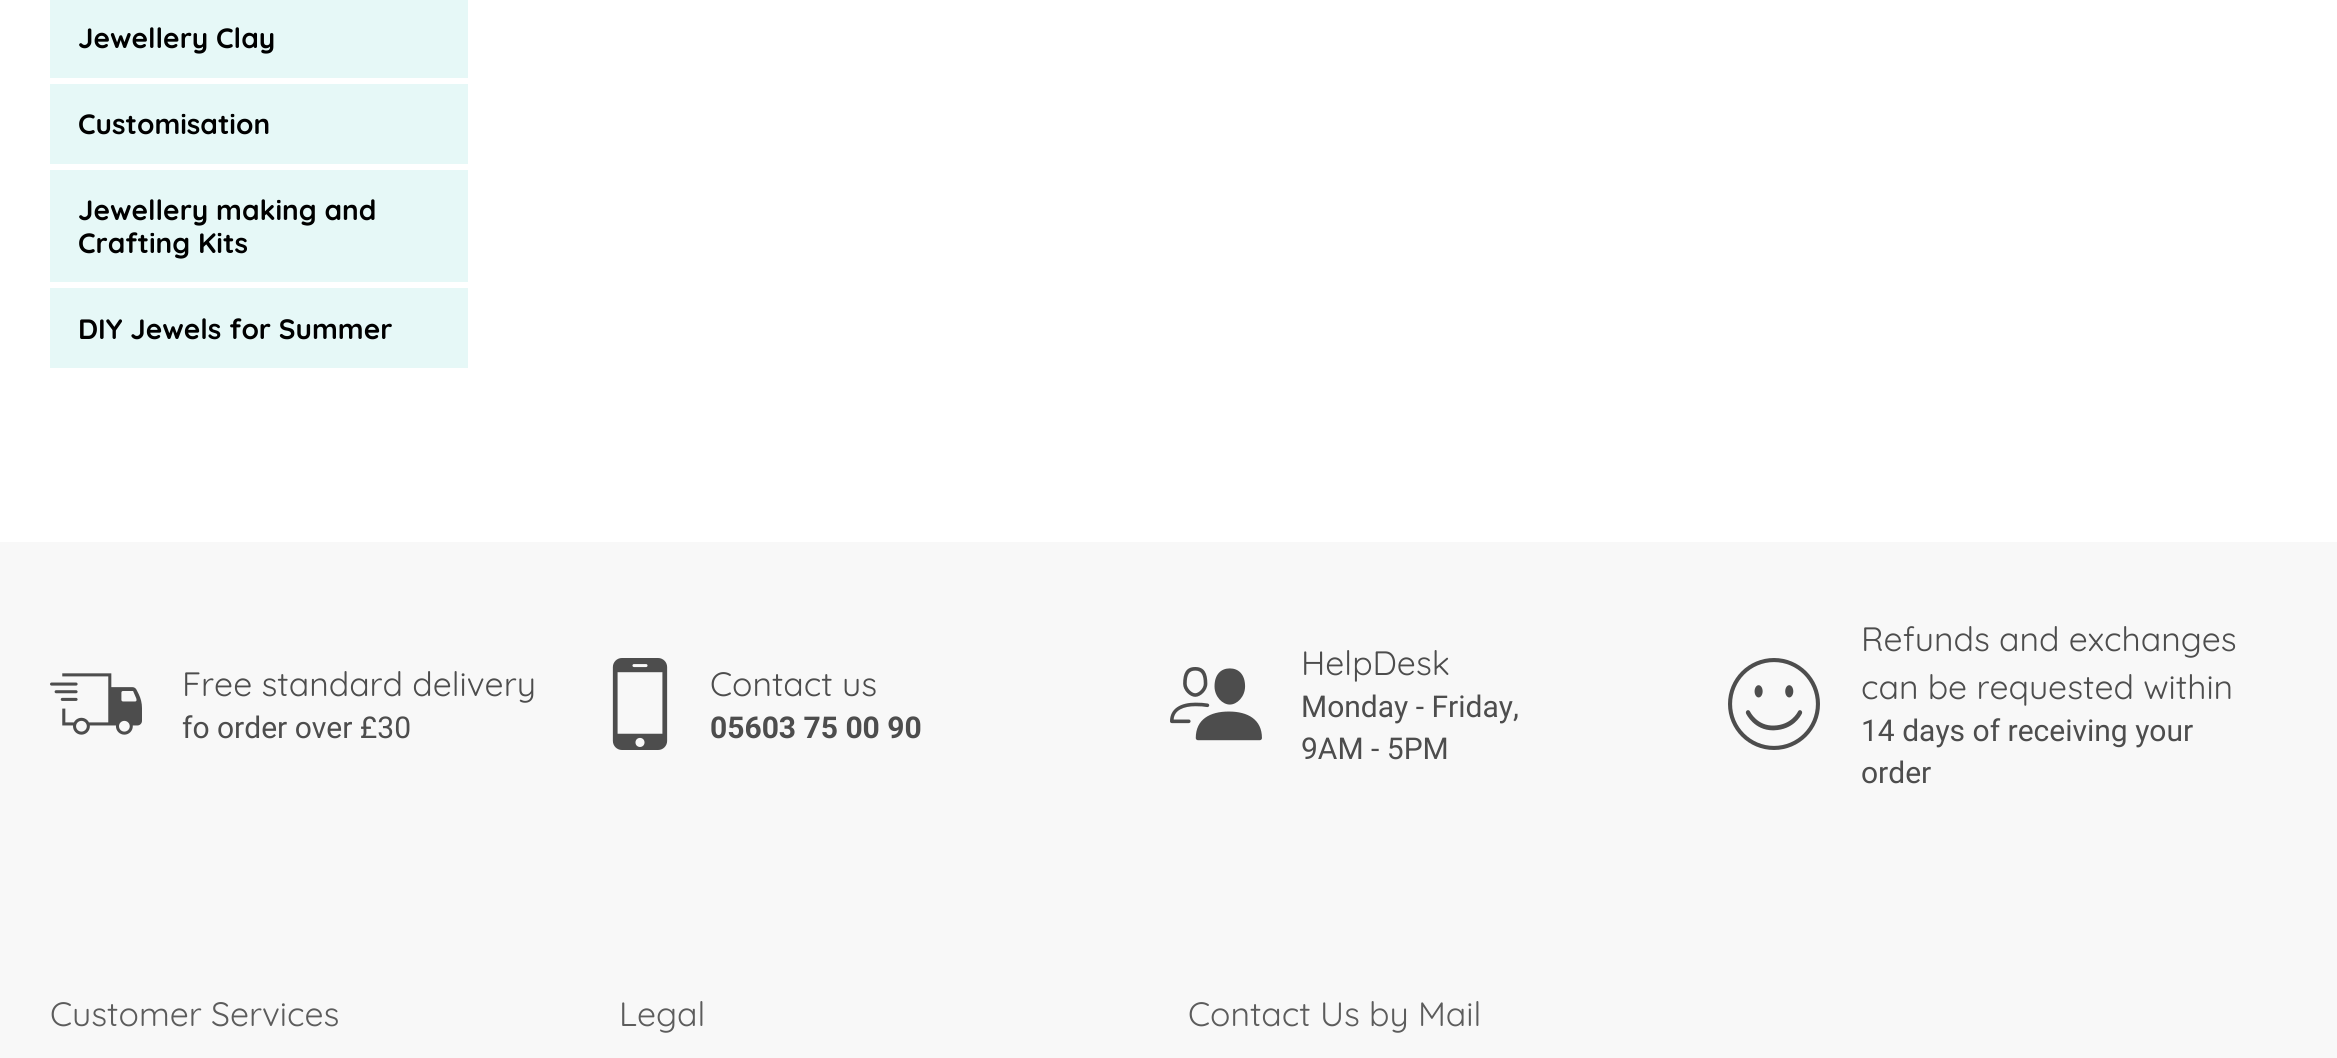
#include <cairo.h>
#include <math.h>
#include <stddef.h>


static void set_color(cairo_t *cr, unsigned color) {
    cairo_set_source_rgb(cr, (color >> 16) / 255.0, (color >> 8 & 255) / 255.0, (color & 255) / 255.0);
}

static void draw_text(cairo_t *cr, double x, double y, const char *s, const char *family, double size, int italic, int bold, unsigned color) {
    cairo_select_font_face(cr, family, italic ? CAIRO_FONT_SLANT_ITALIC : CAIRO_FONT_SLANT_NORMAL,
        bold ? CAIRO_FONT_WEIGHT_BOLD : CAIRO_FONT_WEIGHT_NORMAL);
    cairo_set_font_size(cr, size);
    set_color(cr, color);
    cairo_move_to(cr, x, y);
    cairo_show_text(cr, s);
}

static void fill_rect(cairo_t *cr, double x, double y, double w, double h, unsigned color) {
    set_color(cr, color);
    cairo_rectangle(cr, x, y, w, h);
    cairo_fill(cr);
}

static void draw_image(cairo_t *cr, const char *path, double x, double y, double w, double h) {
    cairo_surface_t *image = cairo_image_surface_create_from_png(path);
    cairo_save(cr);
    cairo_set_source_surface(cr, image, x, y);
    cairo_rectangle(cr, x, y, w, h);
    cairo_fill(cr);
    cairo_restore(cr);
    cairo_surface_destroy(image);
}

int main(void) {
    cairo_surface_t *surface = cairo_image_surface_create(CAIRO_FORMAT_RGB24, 2337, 1058);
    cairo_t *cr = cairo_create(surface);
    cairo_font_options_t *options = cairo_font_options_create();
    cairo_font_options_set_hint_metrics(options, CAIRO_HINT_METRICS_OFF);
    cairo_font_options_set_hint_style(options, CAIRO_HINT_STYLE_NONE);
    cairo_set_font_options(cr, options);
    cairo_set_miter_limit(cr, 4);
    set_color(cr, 0xFFFFFF);
    cairo_paint(cr);
    fill_rect(cr, 50, 0, 418, 78, 0xE6F8F7);
    draw_text(cr, 78, 48, "Jewellery Clay", "Quicksand", 28, 0, 1, 0x000000);
    fill_rect(cr, 50, 84, 418, 80, 0xE6F8F7);
    draw_text(cr, 78, 134, "Customisation", "Quicksand", 28, 0, 1, 0x000000);
    fill_rect(cr, 50, 170, 418, 112, 0xE6F8F7);
    draw_text(cr, 78, 220, "Jewellery making and", "Quicksand", 28, 0, 1, 0x000000);
    draw_text(cr, 78, 253, "Crafting Kits", "Quicksand", 28, 0, 1, 0x000000);
    fill_rect(cr, 50, 288, 418, 80, 0xE6F8F7);
    draw_text(cr, 78, 339, "DIY Jewels for Summer", "Quicksand", 28, 0, 1, 0x000000);
    fill_rect(cr, 0, 542, 2337, 516, 0xF8F8F8);
    draw_image(cr, "assets/img1.png", 50, 673, 92, 62);
    draw_text(cr, 182, 696, "Free standard delivery", "Quicksand", 33.75, 0, 0, 0x4D4D4D);
    draw_text(cr, 182, 738, "fo order over £30", "Roboto", 30, 0, 0, 0x4D4D4D);
    draw_image(cr, "assets/img2.png", 612, 658, 56, 92);
    draw_text(cr, 710, 696, "Contact us", "Quicksand", 33.75, 0, 0, 0x4D4D4D);
    draw_text(cr, 710, 738, "05603 75 00 90", "Roboto", 30, 0, 1, 0x4D4D4D);
    draw_image(cr, "assets/img3.png", 1170, 667, 92, 74);
    draw_text(cr, 1301, 675, "HelpDesk", "Quicksand", 33.75, 0, 0, 0x4D4D4D);
    draw_text(cr, 1301, 717, "Monday - Friday,", "Roboto", 30, 0, 0, 0x4D4D4D);
    draw_text(cr, 1301, 759, "9AM - 5PM", "Roboto", 30, 0, 0, 0x4D4D4D);
    draw_image(cr, "assets/img4.png", 1728, 658, 92, 92);
    draw_text(cr, 1861, 651, "Refunds and exchanges", "Quicksand", 33.75, 0, 0, 0x4D4D4D);
    draw_text(cr, 1861, 699, "can be requested within", "Quicksand", 33.75, 0, 0, 0x4D4D4D);
    draw_text(cr, 1861, 741, "14 days of receiving your", "Roboto", 30, 0, 0, 0x4D4D4D);
    draw_text(cr, 1861, 783, "order", "Roboto", 30, 0, 0, 0x4D4D4D);
    draw_text(cr, 50, 1026, "Customer Services", "Quicksand", 33.75, 0, 0, 0x5C5C5C);
    draw_text(cr, 619, 1026, "Legal", "Quicksand", 33.75, 0, 0, 0x5C5C5C);
    draw_text(cr, 1188, 1026, "Contact Us by Mail", "Quicksand", 33.75, 0, 0, 0x5C5C5C);
    cairo_surface_write_to_png(surface, "output.png");
    cairo_font_options_destroy(options);
    cairo_destroy(cr);
    cairo_surface_destroy(surface);
    return 0;
}
